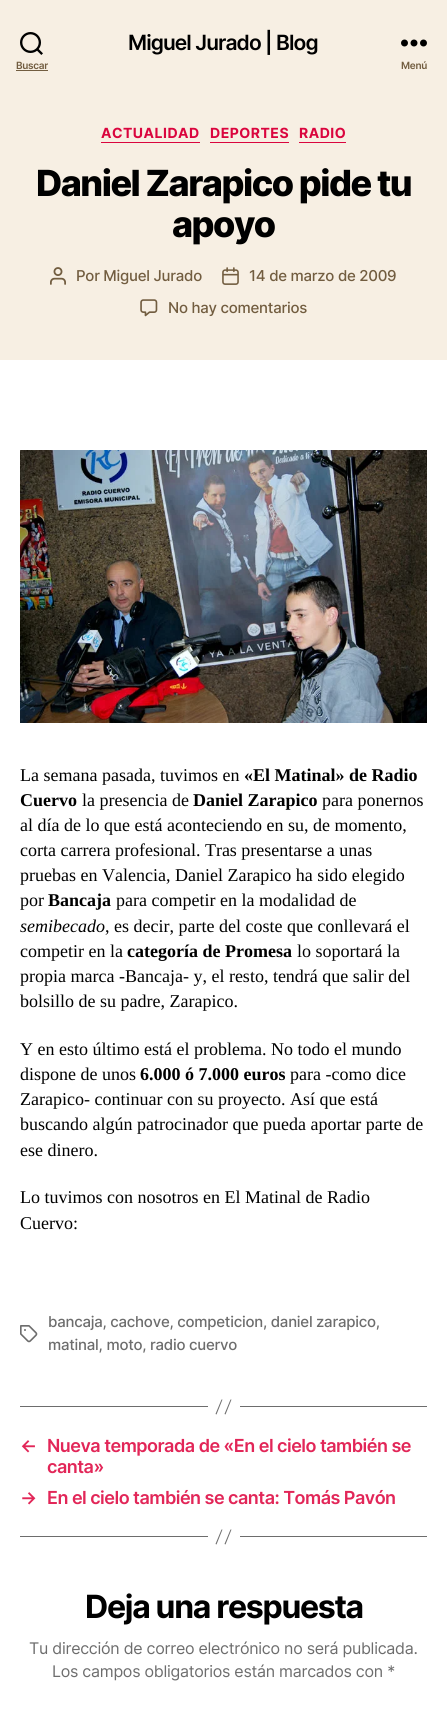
#include <cairo.h>
#include <math.h>
#include <stddef.h>


static void set_color(cairo_t *cr, unsigned color) {
    cairo_set_source_rgb(cr, (color >> 16) / 255.0, (color >> 8 & 255) / 255.0, (color & 255) / 255.0);
}

static void draw_text(cairo_t *cr, double x, double y, const char *s, const char *family, double size, int italic, int bold, unsigned color) {
    cairo_select_font_face(cr, family, italic ? CAIRO_FONT_SLANT_ITALIC : CAIRO_FONT_SLANT_NORMAL,
        bold ? CAIRO_FONT_WEIGHT_BOLD : CAIRO_FONT_WEIGHT_NORMAL);
    cairo_set_font_size(cr, size);
    set_color(cr, color);
    cairo_move_to(cr, x, y);
    cairo_show_text(cr, s);
}

static void draw_spaced(cairo_t *cr, double x, double y, const char *s, double letter, double word) {
    cairo_move_to(cr, x, y);
    while (*s) {
        char ch[5] = {0};
        int n = 0;
        do ch[n++] = *s++; while ((*s & 0xC0) == 0x80);
        cairo_show_text(cr, ch);
        cairo_rel_move_to(cr, letter + word * (*ch == ' '), 0);
    }
}

static void fill_rect(cairo_t *cr, double x, double y, double w, double h, unsigned color) {
    set_color(cr, color);
    cairo_rectangle(cr, x, y, w, h);
    cairo_fill(cr);
}

static void draw_image(cairo_t *cr, const char *path, double x, double y, double w, double h) {
    cairo_surface_t *image = cairo_image_surface_create_from_png(path);
    cairo_save(cr);
    cairo_set_source_surface(cr, image, x, y);
    cairo_rectangle(cr, x, y, w, h);
    cairo_fill(cr);
    cairo_restore(cr);
    cairo_surface_destroy(image);
}

int main(void) {
    cairo_surface_t *surface = cairo_image_surface_create(CAIRO_FORMAT_RGB24, 447, 1720);
    cairo_t *cr = cairo_create(surface);
    cairo_font_options_t *options = cairo_font_options_create();
    cairo_font_options_set_hint_metrics(options, CAIRO_HINT_METRICS_OFF);
    cairo_font_options_set_hint_style(options, CAIRO_HINT_STYLE_NONE);
    cairo_set_font_options(cr, options);
    cairo_set_miter_limit(cr, 4);
    set_color(cr, 0xFFFFFF);
    cairo_paint(cr);
    fill_rect(cr, 0, 0, 447, 360, 0xF7EFE3);
    cairo_select_font_face(cr, "Inter SemiBold", CAIRO_FONT_SLANT_NORMAL, CAIRO_FONT_WEIGHT_NORMAL);
    cairo_set_font_size(cr, 21);
    set_color(cr, 0x000000);
    draw_spaced(cr, 128, 50, "Miguel Jurado | Blog", -0.9, 0);
    draw_image(cr, "assets/img1.png", 20, 32, 23, 23);
    cairo_set_font_size(cr, 10);
    set_color(cr, 0x725D40);
    draw_spaced(cr, 16, 69, "Buscar", -0.27, 0);
    fill_rect(cr, 16, 70, 32, 1, 0x725D40);
    draw_image(cr, "assets/img2.png", 401, 39, 26, 8);
    draw_spaced(cr, 401, 69, "Menú", -0.27, 0);
    fill_rect(cr, 101, 142, 99, 1, 0xDA053E);
    cairo_select_font_face(cr, "Inter", CAIRO_FONT_SLANT_NORMAL, CAIRO_FONT_WEIGHT_BOLD);
    cairo_set_font_size(cr, 14);
    draw_spaced(cr, 101, 138, "ACTUALIDAD", 0.5, 0);
    fill_rect(cr, 210, 142, 79, 1, 0xDA053E);
    draw_spaced(cr, 210, 138, "DEPORTES", 0.5, 0);
    fill_rect(cr, 299, 142, 47, 1, 0xDA053E);
    draw_spaced(cr, 299, 138, "RADIO", 0.5, 0);
    cairo_select_font_face(cr, "Inter ExtraBold", CAIRO_FONT_SLANT_NORMAL, CAIRO_FONT_WEIGHT_NORMAL);
    cairo_set_font_size(cr, 36);
    set_color(cr, 0x000000);
    draw_spaced(cr, 36, 196, "Daniel Zarapico pide tu", -1.5, 0);
    draw_spaced(cr, 172, 237, "apoyo", -1.5, 0);
    draw_image(cr, "assets/img3.png", 50, 267, 16, 18);
    cairo_select_font_face(cr, "Inter Medium", CAIRO_FONT_SLANT_NORMAL, CAIRO_FONT_WEIGHT_NORMAL);
    cairo_set_font_size(cr, 15);
    set_color(cr, 0x725D40);
    draw_spaced(cr, 76, 281, "Por Miguel Jurado", -0.25, 0);
    draw_image(cr, "assets/img4.png", 222, 267, 17, 18);
    draw_spaced(cr, 249, 281, "14 de marzo de 2009", -0.25, 0);
    draw_image(cr, "assets/img5.png", 140, 299, 18, 18);
    draw_spaced(cr, 168, 313, "No hay comentarios", -0.25, 0);
    draw_image(cr, "assets/img6.png", 20, 450, 407, 273);
    draw_text(cr, 20, 781, "La semana pasada, tuvimos en", "Liberation Serif", 18, 0, 0, 0x000000);
    draw_text(cr, 244, 781, "«El Matinal» de Radio", "Liberation Serif", 18, 0, 1, 0x000000);
    draw_text(cr, 20, 806, "Cuervo", "Liberation Serif", 18, 0, 1, 0x000000);
    draw_text(cr, 82, 806, "la presencia de", "Liberation Serif", 18, 0, 0, 0x000000);
    draw_text(cr, 193, 806, "Daniel Zarapico", "Liberation Serif", 18, 0, 1, 0x000000);
    draw_text(cr, 322, 806, "para ponernos", "Liberation Serif", 18, 0, 0, 0x000000);
    draw_text(cr, 20, 831, "al día de lo que está aconteciendo en su, de momento,", "Liberation Serif", 18, 0, 0, 0x000000);
    draw_text(cr, 20, 856, "corta carrera profesional. Tras presentarse a unas", "Liberation Serif", 18, 0, 0, 0x000000);
    draw_text(cr, 20, 881, "pruebas en Valencia, Daniel Zarapico ha sido elegido", "Liberation Serif", 18, 0, 0, 0x000000);
    draw_text(cr, 20, 906, "por", "Liberation Serif", 18, 0, 0, 0x000000);
    draw_text(cr, 48, 906, "Bancaja", "Liberation Serif", 18, 0, 1, 0x000000);
    draw_text(cr, 116, 906, "para competir en la modalidad de", "Liberation Serif", 18, 0, 0, 0x000000);
    draw_text(cr, 20, 932, "semibecado", "Liberation Serif", 18, 1, 0, 0x000000);
    draw_text(cr, 105, 932, ", es decir, parte del coste que conllevará el", "Liberation Serif", 18, 0, 0, 0x000000);
    draw_text(cr, 20, 957, "competir en la", "Liberation Serif", 18, 0, 0, 0x000000);
    draw_text(cr, 127, 957, "categoría de Promesa", "Liberation Serif", 18, 0, 1, 0x000000);
    draw_text(cr, 297, 957, "lo soportará la", "Liberation Serif", 18, 0, 0, 0x000000);
    draw_text(cr, 20, 982, "propia marca -Bancaja- y, el resto, tendrá que salir del", "Liberation Serif", 18, 0, 0, 0x000000);
    draw_text(cr, 20, 1007, "bolsillo de su padre, Zarapico.", "Liberation Serif", 18, 0, 0, 0x000000);
    draw_text(cr, 20, 1055, "Y en esto último está el problema. No todo el mundo", "Liberation Serif", 18, 0, 0, 0x000000);
    draw_text(cr, 20, 1080, "dispone de unos", "Liberation Serif", 18, 0, 0, 0x000000);
    draw_text(cr, 140, 1080, "6.000 ó 7.000 euros", "Liberation Serif", 18, 0, 1, 0x000000);
    draw_text(cr, 290, 1080, "para -como dice", "Liberation Serif", 18, 0, 0, 0x000000);
    draw_text(cr, 20, 1105, "Zarapico- continuar con su proyecto. Así que está", "Liberation Serif", 18, 0, 0, 0x000000);
    draw_text(cr, 20, 1130, "buscando algún patrocinador que pueda aportar parte de", "Liberation Serif", 18, 0, 0, 0x000000);
    draw_text(cr, 20, 1156, "ese dinero.", "Liberation Serif", 18, 0, 0, 0x000000);
    draw_text(cr, 20, 1203, "Lo tuvimos con nosotros en El Matinal de Radio", "Liberation Serif", 18, 0, 0, 0x000000);
    draw_text(cr, 20, 1229, "Cuervo:", "Liberation Serif", 18, 0, 0, 0x000000);
    draw_image(cr, "assets/img7.png", 20, 1325, 18, 18);
    cairo_select_font_face(cr, "Inter Medium", CAIRO_FONT_SLANT_NORMAL, CAIRO_FONT_WEIGHT_NORMAL);
    cairo_set_font_size(cr, 15);
    set_color(cr, 0x6D6D6D);
    draw_spaced(cr, 48, 1327, "bancaja, cachove, competicion, daniel zarapico,", -0.25, 0);
    draw_spaced(cr, 48, 1350, "matinal, moto, radio cuervo", -0.25, 0);
    fill_rect(cr, 240, 1406, 187, 1, 0x6D6D6D);
    fill_rect(cr, 20, 1406, 188, 1, 0x6D6D6D);
    cairo_new_path(cr);
    cairo_move_to(cr, 221.5, 1399.5);
    cairo_line_to(cr, 222.5, 1399.5);
    cairo_line_to(cr, 216.5, 1414.5);
    cairo_line_to(cr, 215.5, 1414);
    cairo_close_path(cr);
    cairo_move_to(cr, 230.5, 1399.5);
    cairo_line_to(cr, 231.5, 1399.5);
    cairo_line_to(cr, 225.5, 1414.5);
    cairo_line_to(cr, 224.5, 1414);
    cairo_close_path(cr);
    cairo_fill(cr);
    cairo_select_font_face(cr, "Inter SemiBold", CAIRO_FONT_SLANT_NORMAL, CAIRO_FONT_WEIGHT_NORMAL);
    cairo_set_font_size(cr, 18);
    set_color(cr, 0xE22658);
    draw_spaced(cr, 20, 1452, "←", -0.5, 0);
    draw_spaced(cr, 47, 1452, "Nueva temporada de «En el cielo también se", -0.5, 0);
    draw_spaced(cr, 47, 1473, "canta»", -0.5, 0);
    draw_spaced(cr, 20, 1504, "→", -0.5, 0);
    draw_spaced(cr, 47, 1504, "En el cielo también se canta: Tomás Pavón", -0.5, 0);
    fill_rect(cr, 240, 1536, 187, 1, 0x6D6D6D);
    fill_rect(cr, 20, 1536, 188, 1, 0x6D6D6D);
    cairo_new_path(cr);
    cairo_move_to(cr, 221.5, 1529.5);
    cairo_line_to(cr, 222.5, 1529.5);
    cairo_line_to(cr, 216.5, 1544.5);
    cairo_line_to(cr, 215.5, 1544);
    cairo_close_path(cr);
    cairo_move_to(cr, 230.5, 1529.5);
    cairo_line_to(cr, 231.5, 1529.5);
    cairo_line_to(cr, 225.5, 1544.5);
    cairo_line_to(cr, 224.5, 1544);
    cairo_close_path(cr);
    cairo_fill(cr);
    cairo_select_font_face(cr, "Inter", CAIRO_FONT_SLANT_NORMAL, CAIRO_FONT_WEIGHT_BOLD);
    cairo_set_font_size(cr, 32);
    set_color(cr, 0x000000);
    draw_spaced(cr, 85, 1618, "Deja una respuesta", -1.3, 0);
    cairo_select_font_face(cr, "Inter", CAIRO_FONT_SLANT_NORMAL, CAIRO_FONT_WEIGHT_NORMAL);
    cairo_set_font_size(cr, 16);
    set_color(cr, 0x6D6D6D);
    draw_spaced(cr, 29, 1654, "Tu dirección de correo electrónico no será publicada.", -0.27, 0);
    draw_spaced(cr, 52, 1677, "Los campos obligatorios están marcados con *", -0.27, 0);
    cairo_surface_write_to_png(surface, "output.png");
    cairo_font_options_destroy(options);
    cairo_destroy(cr);
    cairo_surface_destroy(surface);
    return 0;
}
